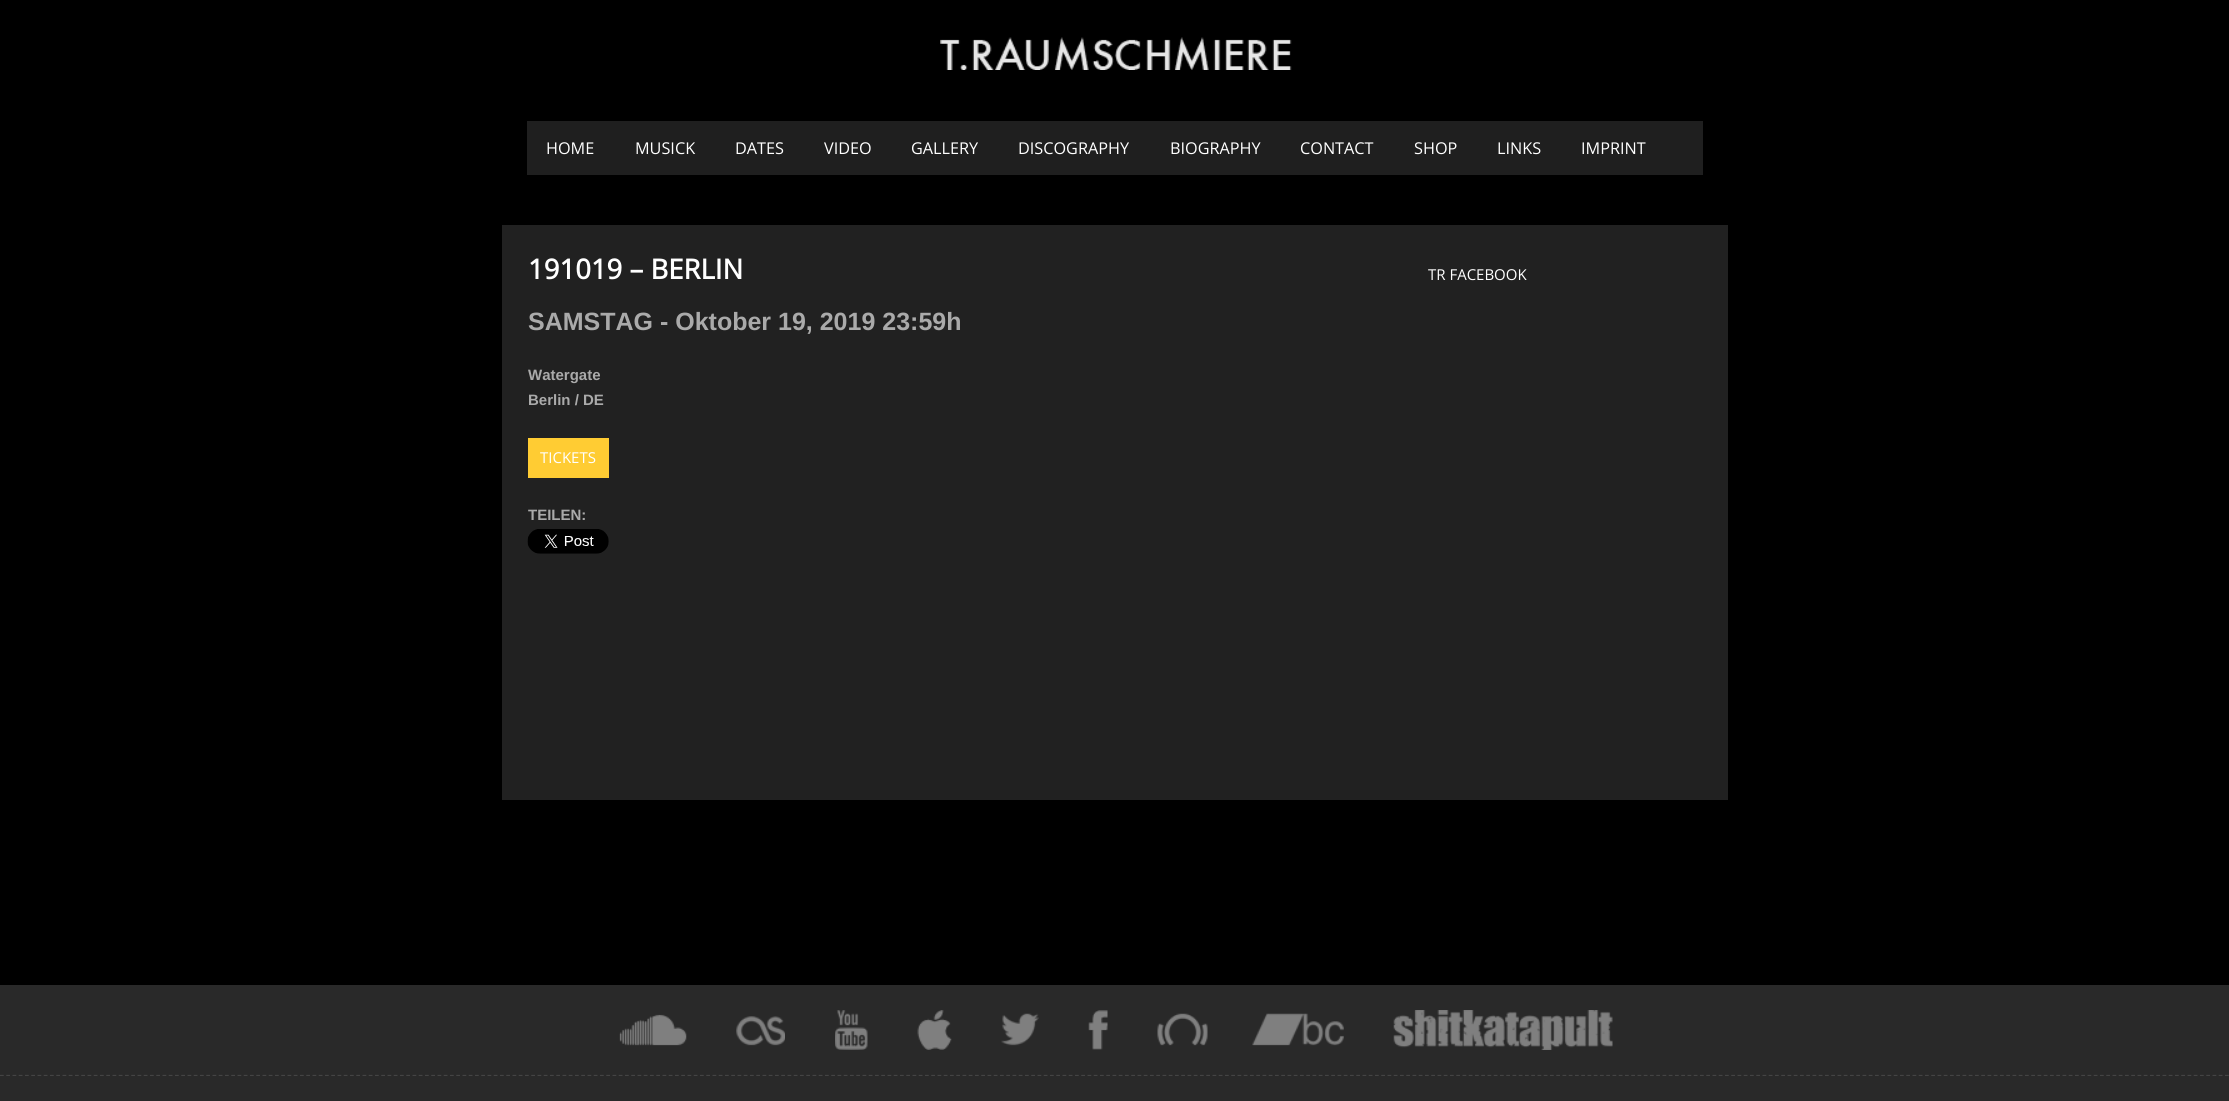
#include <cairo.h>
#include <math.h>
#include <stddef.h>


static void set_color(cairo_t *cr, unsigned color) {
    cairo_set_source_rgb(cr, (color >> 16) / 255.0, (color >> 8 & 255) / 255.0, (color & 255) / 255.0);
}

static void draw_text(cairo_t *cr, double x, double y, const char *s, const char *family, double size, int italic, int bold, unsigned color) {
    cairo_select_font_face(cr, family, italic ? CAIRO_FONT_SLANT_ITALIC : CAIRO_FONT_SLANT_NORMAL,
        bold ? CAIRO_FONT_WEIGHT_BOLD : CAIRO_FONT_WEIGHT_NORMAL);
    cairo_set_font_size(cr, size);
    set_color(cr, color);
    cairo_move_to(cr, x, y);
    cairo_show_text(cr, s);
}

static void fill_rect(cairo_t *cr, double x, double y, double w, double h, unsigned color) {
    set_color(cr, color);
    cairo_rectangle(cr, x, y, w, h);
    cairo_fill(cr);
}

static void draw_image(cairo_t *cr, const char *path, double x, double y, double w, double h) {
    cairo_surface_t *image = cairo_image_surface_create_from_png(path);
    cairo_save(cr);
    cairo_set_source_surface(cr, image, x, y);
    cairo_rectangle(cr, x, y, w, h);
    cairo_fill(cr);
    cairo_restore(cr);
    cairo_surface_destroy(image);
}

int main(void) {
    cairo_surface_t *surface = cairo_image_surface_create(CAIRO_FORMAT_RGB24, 2229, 1101);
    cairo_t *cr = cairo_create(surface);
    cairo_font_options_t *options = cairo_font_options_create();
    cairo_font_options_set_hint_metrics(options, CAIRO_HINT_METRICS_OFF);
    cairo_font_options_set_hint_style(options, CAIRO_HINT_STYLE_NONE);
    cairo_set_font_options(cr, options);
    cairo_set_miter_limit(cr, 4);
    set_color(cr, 0x000000);
    cairo_paint(cr);
    draw_image(cr, "assets/img1.png", 940, 37, 352, 33);
    fill_rect(cr, 527, 121, 1176, 54, 0x1F1F1F);
    draw_text(cr, 546, 154, "HOME", "Open Sans", 16.25, 0, 0, 0xFFFFFF);
    draw_text(cr, 635, 154, "MUSICK", "Open Sans", 16.25, 0, 0, 0xFFFFFF);
    draw_text(cr, 735, 154, "DATES", "Open Sans", 16.25, 0, 0, 0xFFFFFF);
    draw_text(cr, 824, 154, "VIDEO", "Open Sans", 16.25, 0, 0, 0xFFFFFF);
    draw_text(cr, 911, 154, "GALLERY", "Open Sans", 16.25, 0, 0, 0xFFFFFF);
    draw_text(cr, 1018, 154, "DISCOGRAPHY", "Open Sans", 16.25, 0, 0, 0xFFFFFF);
    draw_text(cr, 1170, 154, "BIOGRAPHY", "Open Sans", 16.25, 0, 0, 0xFFFFFF);
    draw_text(cr, 1300, 154, "CONTACT", "Open Sans", 16.25, 0, 0, 0xFFFFFF);
    draw_text(cr, 1414, 154, "SHOP", "Open Sans", 16.25, 0, 0, 0xFFFFFF);
    draw_text(cr, 1497, 154, "LINKS", "Open Sans", 16.25, 0, 0, 0xFFFFFF);
    draw_text(cr, 1581, 154, "IMPRINT", "Open Sans", 16.25, 0, 0, 0xFFFFFF);
    fill_rect(cr, 502, 225, 1226, 575, 0x212121);
    draw_text(cr, 528, 279, "191019 – BERLIN", "Open Sans", 27.5, 0, 1, 0xFFFFFF);
    draw_text(cr, 528, 330, "SAMSTAG - Oktober 19, 2019 23:59h", "Liberation Sans", 25, 0, 1, 0xAAAAAA);
    draw_text(cr, 528, 380, "Watergate", "Liberation Sans", 15, 0, 1, 0xAAAAAA);
    draw_text(cr, 528, 405, "Berlin / DE", "Liberation Sans", 15, 0, 1, 0xAAAAAA);
    fill_rect(cr, 528, 438, 81, 40, 0xFFCC33);
    draw_text(cr, 540, 463, "TICKETS", "Open Sans", 15, 0, 0, 0xFFFFFF);
    draw_text(cr, 528, 520, "TEILEN:", "Liberation Sans", 15, 0, 1, 0xAAAAAA);
    draw_image(cr, "assets/img2.png", 527, 529, 82, 25);
    draw_text(cr, 1428, 280, "TR FACEBOOK", "Open Sans", 15, 0, 0, 0xFFFFFF);
    fill_rect(cr, 0, 985, 2229, 91, 0x292929);
    cairo_new_path(cr);
    cairo_move_to(cr, 0, 1075.5);
    cairo_line_to(cr, 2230, 1075.5);
    set_color(cr, 0x444444);
    cairo_set_line_width(cr, 1.2);
    cairo_set_dash(cr, (double[]){3.75, 2.5}, 2, 0);
    cairo_stroke(cr);
    draw_image(cr, "assets/img3.png", 619, 1014, 68, 32);
    draw_image(cr, "assets/img4.png", 736, 1016, 49, 30);
    draw_image(cr, "assets/img5.png", 835, 1010, 33, 40);
    draw_image(cr, "assets/img6.png", 917, 1010, 35, 40);
    draw_image(cr, "assets/img7.png", 1001, 1013, 38, 33);
    draw_image(cr, "assets/img8.png", 1088, 1010, 20, 40);
    draw_image(cr, "assets/img9.png", 1157, 1013, 51, 33);
    draw_image(cr, "assets/img10.png", 1252, 1013, 92, 33);
    draw_image(cr, "assets/img11.png", 1393, 1010, 220, 40);
    fill_rect(cr, 0, 1076, 2229, 25, 0x292929);
    cairo_surface_write_to_png(surface, "output.png");
    cairo_font_options_destroy(options);
    cairo_destroy(cr);
    cairo_surface_destroy(surface);
    return 0;
}
